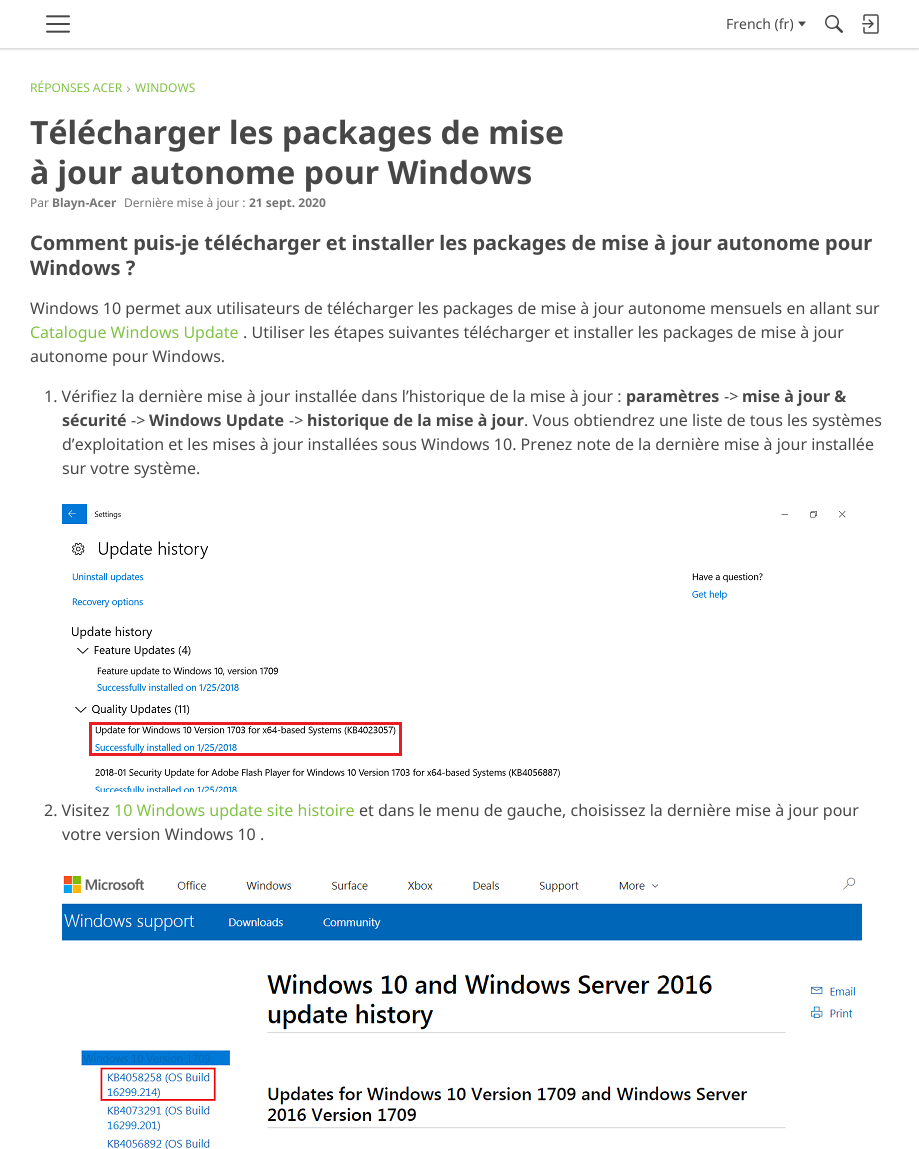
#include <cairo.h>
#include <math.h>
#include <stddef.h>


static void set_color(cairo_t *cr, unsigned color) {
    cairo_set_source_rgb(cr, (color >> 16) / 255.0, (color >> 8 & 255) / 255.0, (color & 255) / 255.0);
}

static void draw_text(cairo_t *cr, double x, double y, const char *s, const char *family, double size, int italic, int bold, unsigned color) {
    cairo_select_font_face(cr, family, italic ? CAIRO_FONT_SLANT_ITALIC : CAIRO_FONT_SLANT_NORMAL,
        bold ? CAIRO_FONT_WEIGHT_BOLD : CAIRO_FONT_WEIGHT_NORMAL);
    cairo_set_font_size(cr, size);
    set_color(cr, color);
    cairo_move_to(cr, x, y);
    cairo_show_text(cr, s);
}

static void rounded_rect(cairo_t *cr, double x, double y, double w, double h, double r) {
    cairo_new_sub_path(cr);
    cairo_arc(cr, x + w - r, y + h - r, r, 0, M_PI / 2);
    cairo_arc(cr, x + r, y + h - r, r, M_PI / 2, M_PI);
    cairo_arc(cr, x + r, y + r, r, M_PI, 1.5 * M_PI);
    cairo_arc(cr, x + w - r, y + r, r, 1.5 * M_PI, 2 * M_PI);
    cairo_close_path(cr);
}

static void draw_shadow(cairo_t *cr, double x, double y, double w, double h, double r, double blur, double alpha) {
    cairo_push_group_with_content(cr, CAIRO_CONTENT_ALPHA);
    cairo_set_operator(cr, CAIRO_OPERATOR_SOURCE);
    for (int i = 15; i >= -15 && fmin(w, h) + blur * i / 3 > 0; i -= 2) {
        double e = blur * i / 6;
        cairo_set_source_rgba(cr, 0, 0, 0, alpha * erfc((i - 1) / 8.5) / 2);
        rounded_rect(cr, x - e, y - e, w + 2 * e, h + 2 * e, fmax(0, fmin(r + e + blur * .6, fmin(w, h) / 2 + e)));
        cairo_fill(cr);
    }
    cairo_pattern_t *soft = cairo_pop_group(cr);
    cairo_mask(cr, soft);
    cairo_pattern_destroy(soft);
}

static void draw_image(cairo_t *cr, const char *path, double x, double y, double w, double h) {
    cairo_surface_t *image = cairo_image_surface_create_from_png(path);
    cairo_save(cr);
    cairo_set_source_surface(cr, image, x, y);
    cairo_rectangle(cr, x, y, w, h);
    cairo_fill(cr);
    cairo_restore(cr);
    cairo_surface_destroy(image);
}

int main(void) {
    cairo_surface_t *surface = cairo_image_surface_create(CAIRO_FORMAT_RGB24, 919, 1149);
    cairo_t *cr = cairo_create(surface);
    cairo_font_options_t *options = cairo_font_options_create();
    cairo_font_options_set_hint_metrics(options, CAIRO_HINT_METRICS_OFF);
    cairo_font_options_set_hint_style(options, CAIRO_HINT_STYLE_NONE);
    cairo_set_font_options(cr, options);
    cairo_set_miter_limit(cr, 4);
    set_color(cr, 0xFFFFFF);
    cairo_paint(cr);
    cairo_save(cr);
    cairo_rectangle(cr, 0, 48, 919, 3);
    cairo_clip(cr);
    set_color(cr, 0x000000);
    draw_shadow(cr, 0, 1, 919, 48, 0, 1.5, 0.22);
    cairo_restore(cr);
    draw_image(cr, "assets/img1.png", 46, 15, 24, 18);
    draw_text(cr, 726, 29, "French (fr)", "Noto Sans", 14, 0, 0, 0x474747);
    cairo_new_path(cr);
    cairo_move_to(cr, 798, 21.5);
    cairo_line_to(cr, 806, 21.5);
    cairo_line_to(cr, 802, 26.5);
    cairo_close_path(cr);
    cairo_fill(cr);
    draw_image(cr, "assets/img2.png", 825, 15, 18, 18);
    draw_image(cr, "assets/img3.png", 862, 14, 17, 20);
    draw_text(cr, 30, 92, "RÉPONSES ACER", "Noto Sans", 12, 0, 0, 0x80C343);
    draw_text(cr, 126, 93, "›", "Liberation Sans", 14, 0, 0, 0xA3A3A3);
    draw_text(cr, 135, 92, "WINDOWS", "Noto Sans", 12, 0, 0, 0x80C343);
    draw_text(cr, 30, 144, "Télécharger les packages de mise", "Noto Sans", 32, 0, 1, 0x474747);
    draw_text(cr, 30, 184, "à jour autonome pour Windows", "Noto Sans", 32, 0, 1, 0x474747);
    draw_text(cr, 30, 207, "Par", "Noto Sans", 12, 0, 0, 0x767676);
    draw_text(cr, 52, 207, "Blayn-Acer", "Noto Sans", 12, 0, 1, 0x767676);
    draw_text(cr, 124, 207, "Dernière mise à jour :", "Noto Sans", 12, 0, 0, 0x767676);
    draw_text(cr, 249, 207, "21 sept. 2020", "Noto Sans", 12, 0, 1, 0x767676);
    draw_text(cr, 30, 250, "Comment puis-je télécharger et installer les packages de mise à jour autonome pour", "Noto Sans", 20, 0, 1, 0x474747);
    draw_text(cr, 30, 275, "Windows ?", "Noto Sans", 20, 0, 1, 0x474747);
    draw_text(cr, 30, 314, "Windows 10 permet aux utilisateurs de télécharger les packages de mise à jour autonome mensuels en allant sur", "Noto Sans", 16, 0, 0, 0x474747);
    draw_text(cr, 30, 338, "Catalogue Windows Update", "Noto Sans", 16, 0, 0, 0x80C343);
    draw_text(cr, 243, 338, ". Utiliser les étapes suivantes télécharger et installer les packages de mise à jour", "Noto Sans", 16, 0, 0, 0x474747);
    draw_text(cr, 30, 362, "autonome pour Windows.", "Noto Sans", 16, 0, 0, 0x474747);
    draw_text(cr, 44, 402, "1. Vérifiez la dernière mise à jour installée dans l’historique de la mise à jour :", "Noto Sans", 16, 0, 0, 0x474747);
    draw_text(cr, 626, 402, "paramètres", "Noto Sans", 16, 0, 1, 0x474747);
    draw_text(cr, 724, 402, "->", "Noto Sans", 16, 0, 0, 0x474747);
    draw_text(cr, 742, 402, "mise à jour &", "Noto Sans", 16, 0, 1, 0x474747);
    draw_text(cr, 62, 426, "sécurité", "Noto Sans", 16, 0, 1, 0x474747);
    draw_text(cr, 131, 426, "->", "Noto Sans", 16, 0, 0, 0x474747);
    draw_text(cr, 149, 426, "Windows Update", "Noto Sans", 16, 0, 1, 0x474747);
    draw_text(cr, 289, 426, "->", "Noto Sans", 16, 0, 0, 0x474747);
    draw_text(cr, 307, 426, "historique de la mise à jour", "Noto Sans", 16, 0, 1, 0x474747);
    draw_text(cr, 524, 426, ". Vous obtiendrez une liste de tous les systèmes", "Noto Sans", 16, 0, 0, 0x474747);
    draw_text(cr, 62, 450, "d’exploitation et les mises à jour installées sous Windows 10. Prenez note de la dernière mise à jour installée", "Noto Sans", 16, 0, 0, 0x474747);
    draw_text(cr, 62, 474, "sur votre système.", "Noto Sans", 16, 0, 0, 0x474747);
    draw_image(cr, "assets/img4.png", 62, 504, 784, 288);
    draw_text(cr, 44, 816, "2. Visitez", "Noto Sans", 16, 0, 0, 0x474747);
    draw_text(cr, 114, 816, "10 Windows update site histoire", "Noto Sans", 16, 0, 0, 0x80C343);
    draw_text(cr, 359, 816, "et dans le menu de gauche, choisissez la dernière mise à jour pour", "Noto Sans", 16, 0, 0, 0x474747);
    draw_text(cr, 62, 840, "votre version Windows 10 .", "Noto Sans", 16, 0, 0, 0x474747);
    draw_image(cr, "assets/img5.png", 62, 876, 800, 273);
    cairo_surface_write_to_png(surface, "output.png");
    cairo_font_options_destroy(options);
    cairo_destroy(cr);
    cairo_surface_destroy(surface);
    return 0;
}
